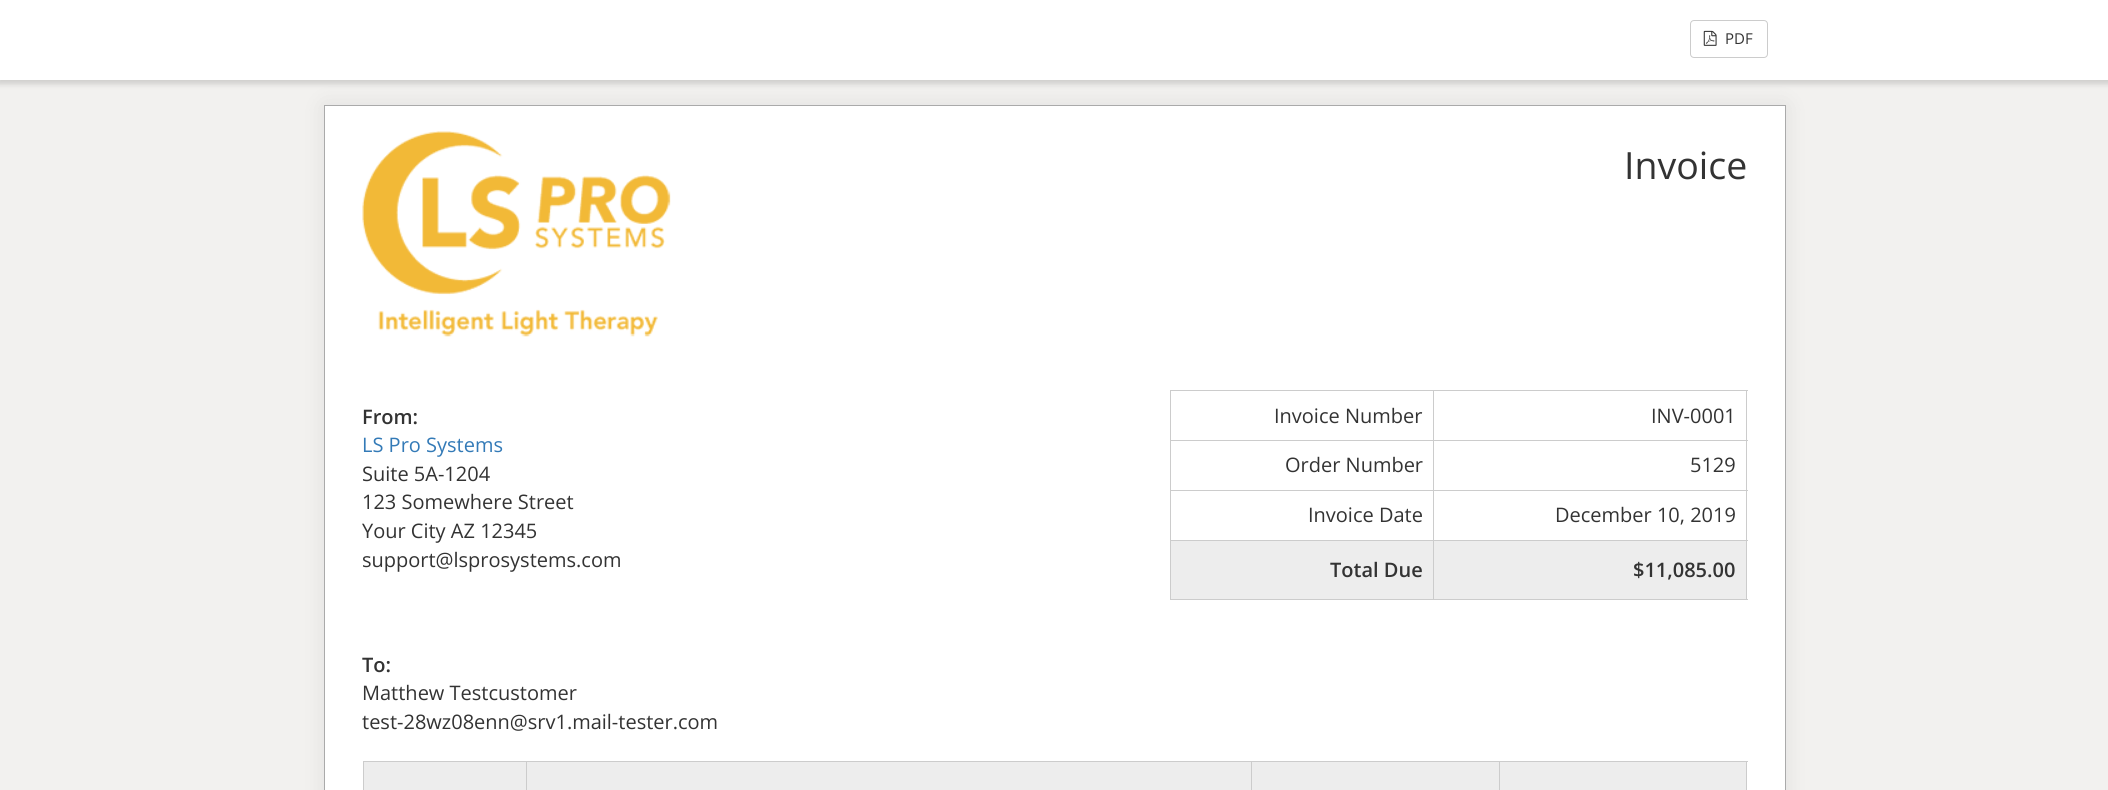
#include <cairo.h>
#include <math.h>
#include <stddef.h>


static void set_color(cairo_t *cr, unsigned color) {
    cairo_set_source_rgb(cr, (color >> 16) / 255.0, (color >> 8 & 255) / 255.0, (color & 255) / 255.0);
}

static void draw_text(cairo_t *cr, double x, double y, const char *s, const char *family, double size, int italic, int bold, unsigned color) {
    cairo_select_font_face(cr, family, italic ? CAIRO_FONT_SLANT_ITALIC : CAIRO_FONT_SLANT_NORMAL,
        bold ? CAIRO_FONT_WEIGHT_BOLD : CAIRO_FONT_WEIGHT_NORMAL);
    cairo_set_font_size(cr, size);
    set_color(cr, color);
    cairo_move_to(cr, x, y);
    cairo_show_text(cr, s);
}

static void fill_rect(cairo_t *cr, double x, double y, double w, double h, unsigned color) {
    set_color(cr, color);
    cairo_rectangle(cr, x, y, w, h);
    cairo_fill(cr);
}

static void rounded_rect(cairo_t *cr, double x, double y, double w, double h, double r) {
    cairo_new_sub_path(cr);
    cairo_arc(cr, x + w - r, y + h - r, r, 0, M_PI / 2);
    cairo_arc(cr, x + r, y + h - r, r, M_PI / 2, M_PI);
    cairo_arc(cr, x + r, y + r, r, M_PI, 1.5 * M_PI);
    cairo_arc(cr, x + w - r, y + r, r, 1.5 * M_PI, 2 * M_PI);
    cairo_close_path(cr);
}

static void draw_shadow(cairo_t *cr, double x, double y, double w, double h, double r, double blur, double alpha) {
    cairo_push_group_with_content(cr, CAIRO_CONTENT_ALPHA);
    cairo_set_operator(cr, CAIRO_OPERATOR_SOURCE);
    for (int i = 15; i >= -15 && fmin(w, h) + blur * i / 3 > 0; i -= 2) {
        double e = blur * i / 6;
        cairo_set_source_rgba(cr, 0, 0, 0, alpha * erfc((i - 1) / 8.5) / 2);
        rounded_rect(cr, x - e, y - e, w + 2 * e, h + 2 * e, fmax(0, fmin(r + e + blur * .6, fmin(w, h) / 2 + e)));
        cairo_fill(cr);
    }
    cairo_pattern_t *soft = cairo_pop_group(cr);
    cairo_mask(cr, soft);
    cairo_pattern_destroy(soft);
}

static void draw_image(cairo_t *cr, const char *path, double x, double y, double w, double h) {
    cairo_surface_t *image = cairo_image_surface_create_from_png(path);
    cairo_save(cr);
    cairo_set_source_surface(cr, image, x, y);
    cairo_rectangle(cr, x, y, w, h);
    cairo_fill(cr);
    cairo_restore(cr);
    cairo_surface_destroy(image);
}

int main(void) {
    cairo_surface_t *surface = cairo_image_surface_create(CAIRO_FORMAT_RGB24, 2108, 790);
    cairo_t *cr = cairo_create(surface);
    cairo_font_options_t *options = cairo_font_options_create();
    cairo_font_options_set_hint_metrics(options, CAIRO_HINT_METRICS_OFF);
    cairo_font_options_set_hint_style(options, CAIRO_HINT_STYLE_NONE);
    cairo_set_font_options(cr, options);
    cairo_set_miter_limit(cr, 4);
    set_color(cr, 0xF2F1EF);
    cairo_paint(cr);
    set_color(cr, 0x000000);
    draw_shadow(cr, -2, -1, 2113, 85, 0, 3, 0.15);
    fill_rect(cr, 0, 0, 2108, 80, 0xFFFFFF);
    rounded_rect(cr, 1690.5, 20.5, 77, 37, 3.5);
    set_color(cr, 0xCCCCCC);
    cairo_set_line_width(cr, 1);
    cairo_stroke(cr);
    draw_image(cr, "assets/img1.png", 1703, 30, 14, 16);
    draw_text(cr, 1725, 44, "PDF", "Open Sans", 15, 0, 0, 0x333333);
    set_color(cr, 0x000000);
    draw_shadow(cr, 324, 105, 1462, 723, 0, 12.5, 0.07);
    set_color(cr, 0xFFFFFF);
    cairo_rectangle(cr, 324.5, 105.5, 1461, 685);
    cairo_fill_preserve(cr);
    set_color(cr, 0xAAAAAA);
    cairo_stroke(cr);
    draw_image(cr, "assets/img2.png", 362, 131, 309, 206);
    draw_text(cr, 1624, 179, "Invoice", "Open Sans", 37.5, 0, 0, 0x333333);
    draw_text(cr, 362, 424, "From:", "Open Sans SemiBold", 20, 0, 0, 0x333333);
    draw_text(cr, 362, 452, "LS Pro Systems", "Open Sans", 20, 0, 0, 0x337AB7);
    draw_text(cr, 362, 481, "Suite 5A-1204", "Open Sans", 20, 0, 0, 0x333333);
    draw_text(cr, 362, 509, "123 Somewhere Street", "Open Sans", 20, 0, 0, 0x333333);
    draw_text(cr, 362, 538, "Your City AZ 12345", "Open Sans", 20, 0, 0, 0x333333);
    draw_text(cr, 362, 567, "support@lsprosystems.com", "Open Sans", 20, 0, 0, 0x333333);
    fill_rect(cr, 1170, 390, 578, 1, 0xCCCCCC);
    fill_rect(cr, 1746, 390, 1, 210, 0xCCCCCC);
    fill_rect(cr, 1170, 599, 578, 1, 0xCCCCCC);
    fill_rect(cr, 1170, 390, 1, 210, 0xCCCCCC);
    draw_text(cr, 1274, 423, "Invoice Number", "Open Sans", 20, 0, 0, 0x333333);
    fill_rect(cr, 1433, 440, 315, 1, 0xCCCCCC);
    fill_rect(cr, 1433, 490, 315, 1, 0xCCCCCC);
    fill_rect(cr, 1433, 540, 315, 1, 0xCCCCCC);
    fill_rect(cr, 1433, 540, 1, 60, 0xCCCCCC);
    fill_rect(cr, 1170, 540, 264, 1, 0xCCCCCC);
    fill_rect(cr, 1433, 490, 1, 51, 0xCCCCCC);
    fill_rect(cr, 1170, 490, 264, 1, 0xCCCCCC);
    fill_rect(cr, 1433, 440, 1, 51, 0xCCCCCC);
    fill_rect(cr, 1170, 440, 264, 1, 0xCCCCCC);
    fill_rect(cr, 1433, 390, 1, 51, 0xCCCCCC);
    draw_text(cr, 1651, 423, "INV-0001", "Open Sans", 20, 0, 0, 0x333333);
    draw_text(cr, 1285, 472, "Order Number", "Open Sans", 20, 0, 0, 0x333333);
    draw_text(cr, 1690, 472, "5129", "Open Sans", 20, 0, 0, 0x333333);
    draw_text(cr, 1308, 522, "Invoice Date", "Open Sans", 20, 0, 0, 0x333333);
    draw_text(cr, 1555, 522, "December 10, 2019", "Open Sans", 20, 0, 0, 0x333333);
    fill_rect(cr, 1171, 541, 262, 58, 0xEDEDED);
    draw_text(cr, 1330, 577, "Total Due", "Open Sans SemiBold", 20, 0, 0, 0x333333);
    fill_rect(cr, 1434, 541, 312, 58, 0xEDEDED);
    draw_text(cr, 1633, 577, "$11,085.00", "Open Sans SemiBold", 20, 0, 0, 0x333333);
    draw_text(cr, 362, 672, "To:", "Open Sans SemiBold", 20, 0, 0, 0x333333);
    draw_text(cr, 362, 700, "Matthew Testcustomer", "Open Sans", 20, 0, 0, 0x333333);
    draw_text(cr, 362, 729, "test-28wz08enn@srv1.mail-tester.com", "Open Sans", 20, 0, 0, 0x333333);
    fill_rect(cr, 363, 761, 1385, 1, 0xCCCCCC);
    fill_rect(cr, 1746, 761, 1, 29, 0xCCCCCC);
    fill_rect(cr, 363, 761, 1, 29, 0xCCCCCC);
    fill_rect(cr, 364, 762, 1135, 28, 0xEDEDED);
    fill_rect(cr, 526, 761, 1, 29, 0xCCCCCC);
    fill_rect(cr, 1251, 761, 1, 29, 0xCCCCCC);
    fill_rect(cr, 1500, 762, 246, 28, 0xEDEDED);
    fill_rect(cr, 1499, 761, 1, 29, 0xCCCCCC);
    cairo_surface_write_to_png(surface, "output.png");
    cairo_font_options_destroy(options);
    cairo_destroy(cr);
    cairo_surface_destroy(surface);
    return 0;
}
